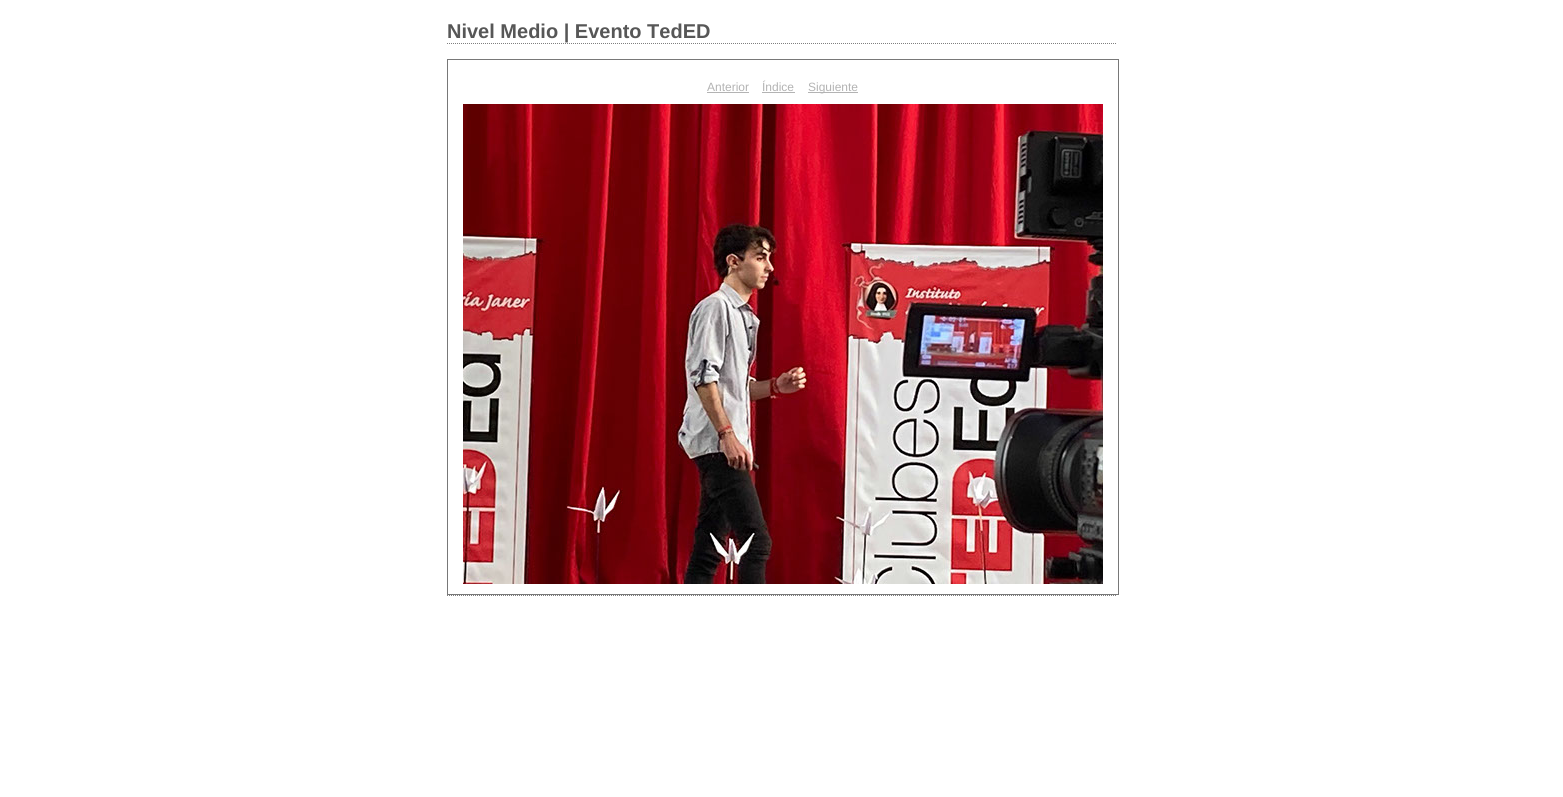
#include <cairo.h>
#include <math.h>
#include <stddef.h>


static void set_color(cairo_t *cr, unsigned color) {
    cairo_set_source_rgb(cr, (color >> 16) / 255.0, (color >> 8 & 255) / 255.0, (color & 255) / 255.0);
}

static void draw_text(cairo_t *cr, double x, double y, const char *s, const char *family, double size, int italic, int bold, unsigned color) {
    cairo_select_font_face(cr, family, italic ? CAIRO_FONT_SLANT_ITALIC : CAIRO_FONT_SLANT_NORMAL,
        bold ? CAIRO_FONT_WEIGHT_BOLD : CAIRO_FONT_WEIGHT_NORMAL);
    cairo_set_font_size(cr, size);
    set_color(cr, color);
    cairo_move_to(cr, x, y);
    cairo_show_text(cr, s);
}

static void fill_rect(cairo_t *cr, double x, double y, double w, double h, unsigned color) {
    set_color(cr, color);
    cairo_rectangle(cr, x, y, w, h);
    cairo_fill(cr);
}

static void draw_image(cairo_t *cr, const char *path, double x, double y, double w, double h) {
    cairo_surface_t *image = cairo_image_surface_create_from_png(path);
    cairo_save(cr);
    cairo_set_source_surface(cr, image, x, y);
    cairo_rectangle(cr, x, y, w, h);
    cairo_fill(cr);
    cairo_restore(cr);
    cairo_surface_destroy(image);
}

int main(void) {
    cairo_surface_t *surface = cairo_image_surface_create(CAIRO_FORMAT_RGB24, 1563, 797);
    cairo_t *cr = cairo_create(surface);
    cairo_font_options_t *options = cairo_font_options_create();
    cairo_font_options_set_hint_metrics(options, CAIRO_HINT_METRICS_OFF);
    cairo_font_options_set_hint_style(options, CAIRO_HINT_STYLE_NONE);
    cairo_set_font_options(cr, options);
    cairo_set_miter_limit(cr, 4);
    set_color(cr, 0xFFFFFF);
    cairo_paint(cr);
    cairo_new_path(cr);
    cairo_move_to(cr, 447, 43.5);
    cairo_line_to(cr, 1117, 43.5);
    set_color(cr, 0x7F7F7F);
    cairo_set_line_width(cr, 1);
    cairo_set_dash(cr, (double[]){1, 1}, 2, 0);
    cairo_stroke(cr);
    draw_text(cr, 447, 38, "Nivel Medio | Evento TedED", "Liberation Sans", 20, 0, 1, 0x575757);
    cairo_rectangle(cr, 447.5, 59.5, 671, 535);
    set_color(cr, 0x787878);
    cairo_set_dash(cr, NULL, 0, 0);
    cairo_stroke(cr);
    draw_text(cr, 707, 91, "Anterior", "Liberation Sans", 12, 0, 0, 0xB3B3B3);
    fill_rect(cr, 707, 92, 42, 1, 0xB3B3B3);
    draw_text(cr, 762, 91, "Índice", "Liberation Sans", 12, 0, 0, 0xB3B3B3);
    fill_rect(cr, 762, 92, 33, 1, 0xB3B3B3);
    fill_rect(cr, 808, 92, 50, 1, 0xB3B3B3);
    draw_text(cr, 808, 91, "Siguiente", "Liberation Sans", 12, 0, 0, 0xB3B3B3);
    draw_image(cr, "assets/img1.png", 463, 104, 640, 480);
    cairo_new_path(cr);
    cairo_move_to(cr, 447, 595.5);
    cairo_line_to(cr, 1117, 595.5);
    set_color(cr, 0x7F7F7F);
    cairo_set_dash(cr, (double[]){1, 1}, 2, 0);
    cairo_stroke(cr);
    cairo_surface_write_to_png(surface, "output.png");
    cairo_font_options_destroy(options);
    cairo_destroy(cr);
    cairo_surface_destroy(surface);
    return 0;
}
